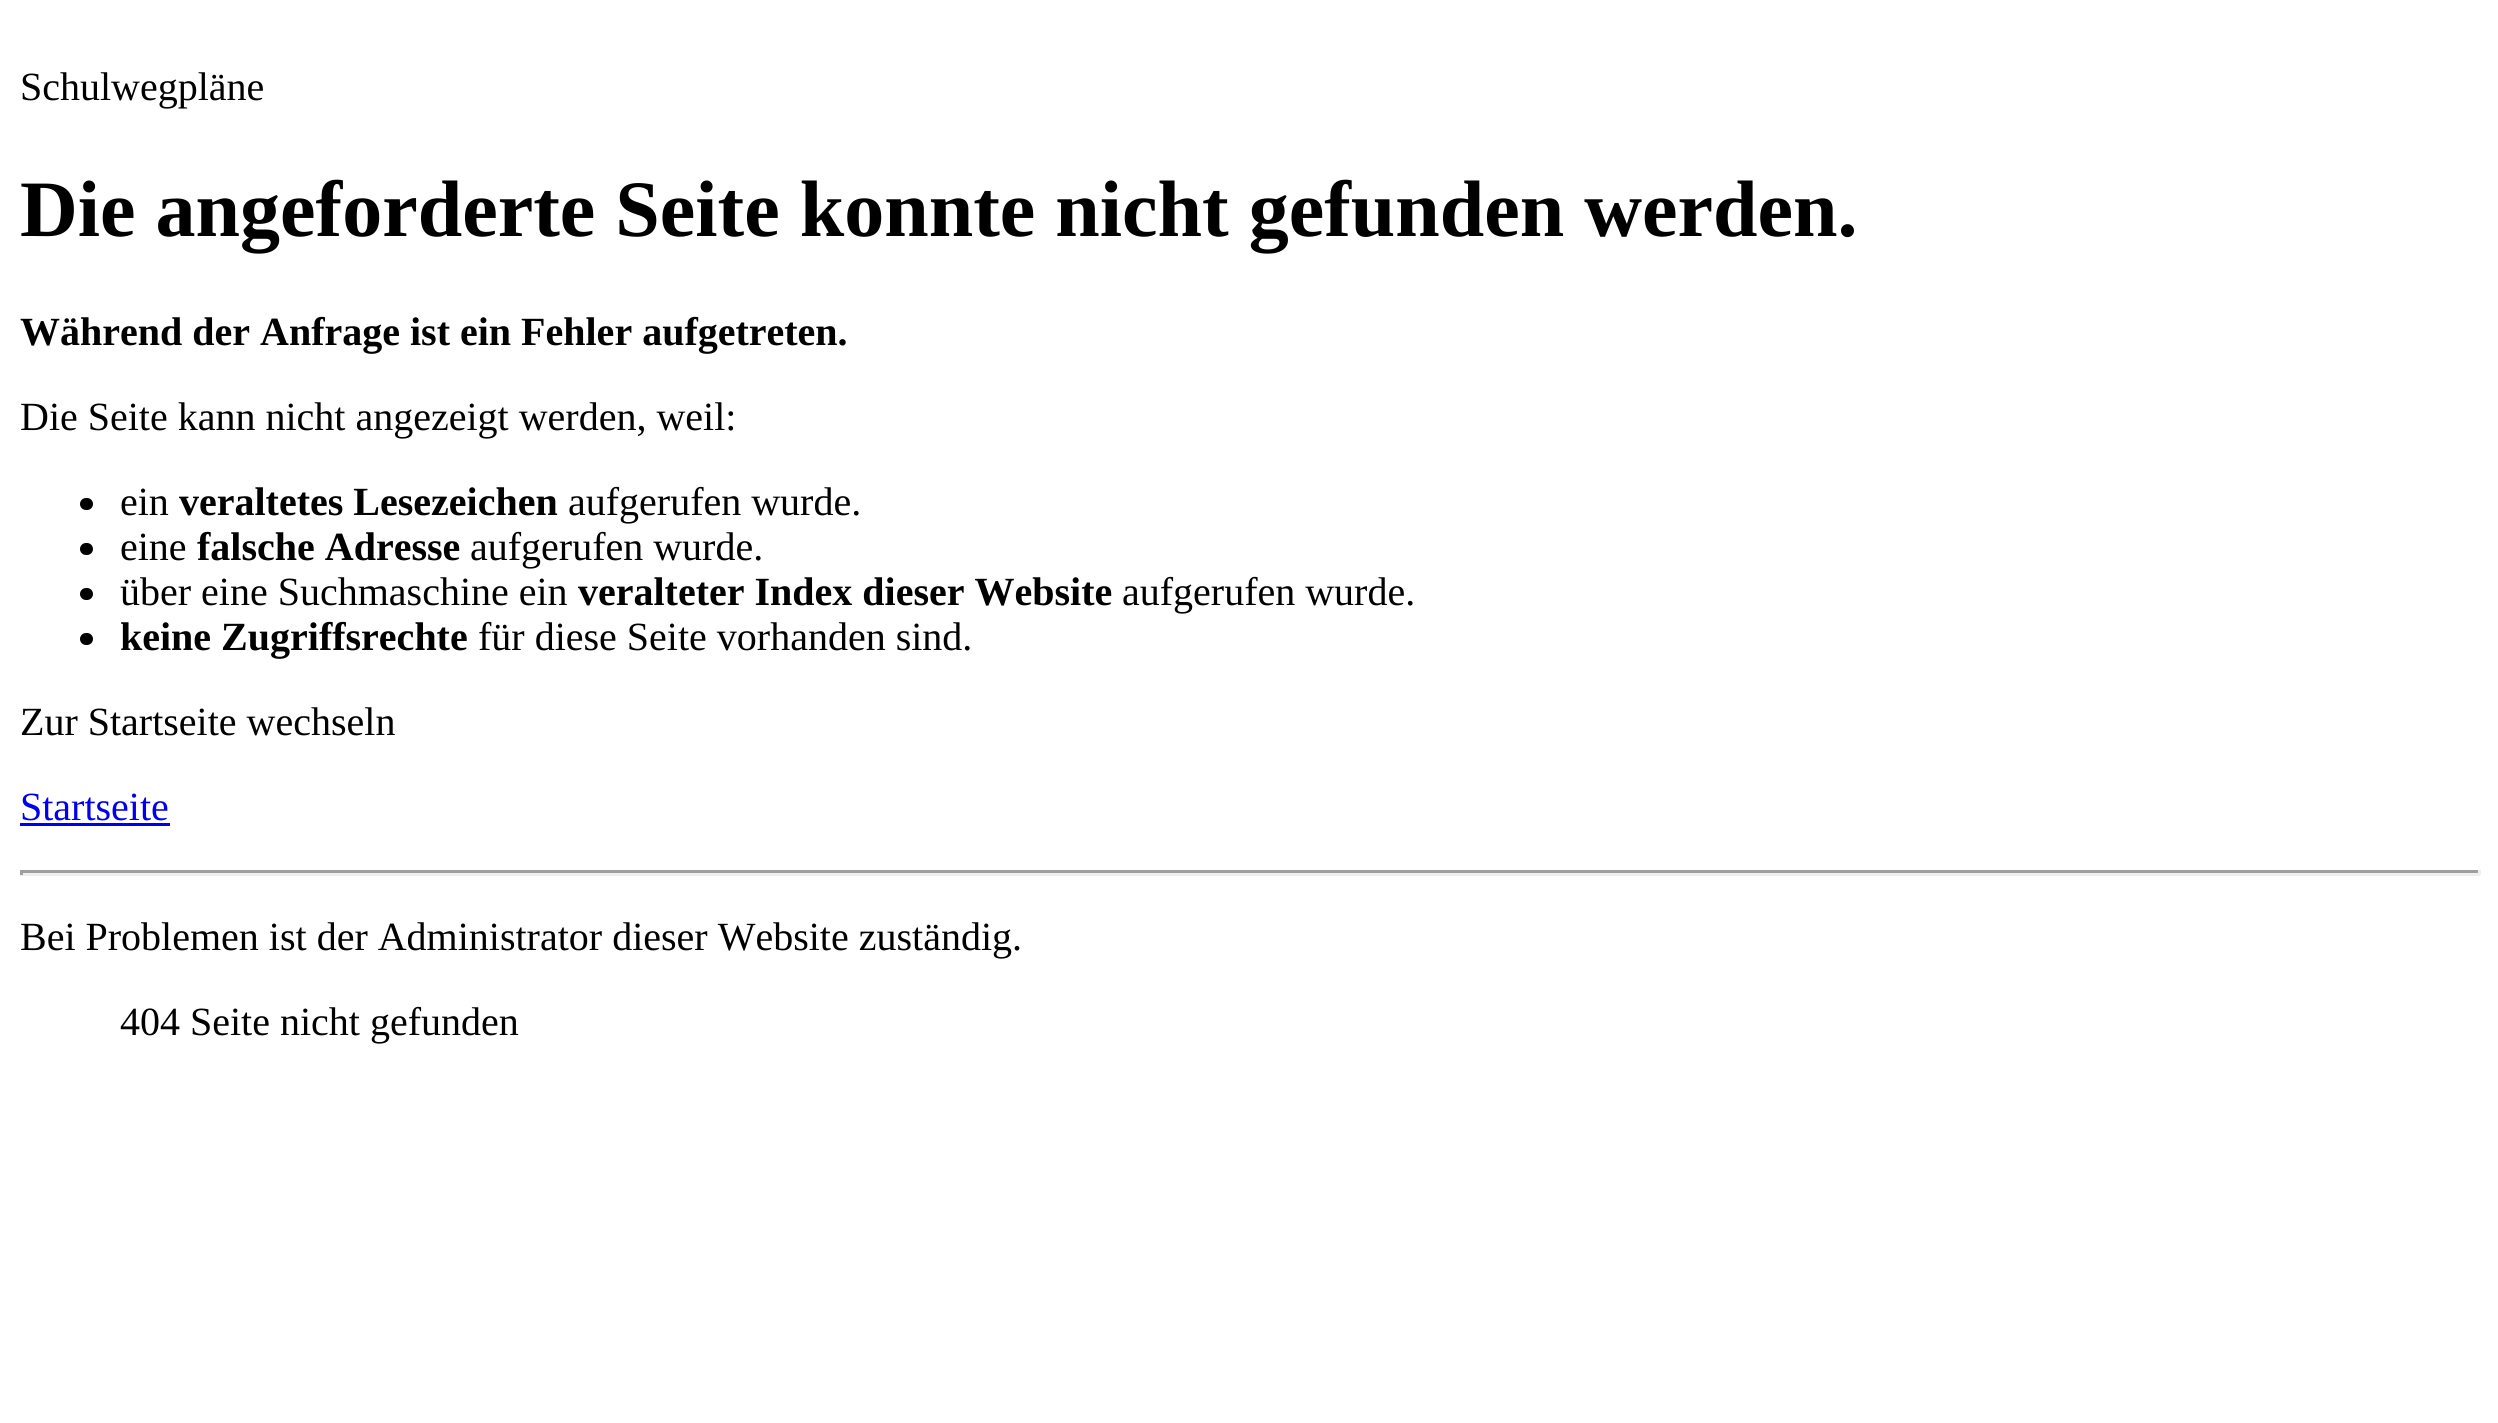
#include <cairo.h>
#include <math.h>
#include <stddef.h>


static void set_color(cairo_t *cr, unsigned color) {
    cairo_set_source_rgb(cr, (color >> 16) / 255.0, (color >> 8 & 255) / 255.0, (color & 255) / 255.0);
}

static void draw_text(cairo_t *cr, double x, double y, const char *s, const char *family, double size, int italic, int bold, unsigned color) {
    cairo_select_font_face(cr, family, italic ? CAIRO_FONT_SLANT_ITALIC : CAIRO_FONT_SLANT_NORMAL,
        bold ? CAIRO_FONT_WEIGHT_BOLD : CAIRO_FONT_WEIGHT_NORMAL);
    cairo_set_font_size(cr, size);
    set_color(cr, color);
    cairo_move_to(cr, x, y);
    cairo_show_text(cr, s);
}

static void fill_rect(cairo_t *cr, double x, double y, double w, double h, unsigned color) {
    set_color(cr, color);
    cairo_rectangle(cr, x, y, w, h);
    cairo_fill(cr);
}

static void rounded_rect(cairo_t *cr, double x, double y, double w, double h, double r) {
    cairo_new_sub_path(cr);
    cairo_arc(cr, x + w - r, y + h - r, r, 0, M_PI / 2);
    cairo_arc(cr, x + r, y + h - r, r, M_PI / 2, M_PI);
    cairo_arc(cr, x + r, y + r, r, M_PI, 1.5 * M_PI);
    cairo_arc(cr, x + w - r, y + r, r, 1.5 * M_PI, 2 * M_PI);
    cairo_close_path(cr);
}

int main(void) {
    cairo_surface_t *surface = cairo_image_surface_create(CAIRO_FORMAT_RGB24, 2498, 1423);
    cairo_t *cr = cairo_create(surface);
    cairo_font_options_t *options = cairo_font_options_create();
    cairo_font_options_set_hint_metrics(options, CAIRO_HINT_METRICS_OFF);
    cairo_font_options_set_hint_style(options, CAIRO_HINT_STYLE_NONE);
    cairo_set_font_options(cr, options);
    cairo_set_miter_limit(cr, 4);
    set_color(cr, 0xFFFFFF);
    cairo_paint(cr);
    draw_text(cr, 20, 100, "Schulwegpläne", "Liberation Serif", 40, 0, 0, 0x000000);
    draw_text(cr, 20, 236, "Die angeforderte Seite konnte nicht gefunden werden.", "Liberation Serif", 80, 0, 1, 0x000000);
    draw_text(cr, 20, 345, "Während der Anfrage ist ein Fehler aufgetreten.", "Liberation Serif", 40, 0, 1, 0x000000);
    draw_text(cr, 20, 430, "Die Seite kann nicht angezeigt werden, weil:", "Liberation Serif", 40, 0, 0, 0x000000);
    rounded_rect(cr, 80, 498, 13, 12, 6);
    cairo_fill(cr);
    draw_text(cr, 120, 515, "ein", "Liberation Serif", 40, 0, 0, 0x000000);
    draw_text(cr, 179, 515, "veraltetes Lesezeichen", "Liberation Serif", 40, 0, 1, 0x000000);
    draw_text(cr, 568, 515, "aufgerufen wurde.", "Liberation Serif", 40, 0, 0, 0x000000);
    rounded_rect(cr, 80, 543, 13, 12, 6);
    cairo_fill(cr);
    draw_text(cr, 120, 560, "eine", "Liberation Serif", 40, 0, 0, 0x000000);
    draw_text(cr, 197, 560, "falsche Adresse", "Liberation Serif", 40, 0, 1, 0x000000);
    draw_text(cr, 470, 560, "aufgerufen wurde.", "Liberation Serif", 40, 0, 0, 0x000000);
    rounded_rect(cr, 80, 588, 13, 12, 6);
    cairo_fill(cr);
    draw_text(cr, 120, 605, "über eine Suchmaschine ein", "Liberation Serif", 40, 0, 0, 0x000000);
    draw_text(cr, 578, 605, "veralteter Index dieser Website", "Liberation Serif", 40, 0, 1, 0x000000);
    draw_text(cr, 1122, 605, "aufgerufen wurde.", "Liberation Serif", 40, 0, 0, 0x000000);
    rounded_rect(cr, 80, 633, 13, 12, 6);
    cairo_fill(cr);
    draw_text(cr, 120, 650, "keine Zugriffsrechte", "Liberation Serif", 40, 0, 1, 0x000000);
    draw_text(cr, 478, 650, "für diese Seite vorhanden sind.", "Liberation Serif", 40, 0, 0, 0x000000);
    draw_text(cr, 20, 735, "Zur Startseite wechseln", "Liberation Serif", 40, 0, 0, 0x000000);
    draw_text(cr, 20, 820, "Startseite", "Liberation Serif", 40, 0, 0, 0x0000EE);
    fill_rect(cr, 20, 823, 150, 3, 0x0000EE);
    fill_rect(cr, 20, 870, 2460, 3, 0x9F9F9F);
    fill_rect(cr, 2478, 870, 3, 5, 0xEEEEEE);
    fill_rect(cr, 20, 873, 2460, 3, 0xEEEEEE);
    fill_rect(cr, 20, 870, 3, 5, 0x9F9F9F);
    draw_text(cr, 20, 950, "Bei Problemen ist der Administrator dieser Website zuständig.", "Liberation Serif", 40, 0, 0, 0x000000);
    draw_text(cr, 120, 1035, "404 Seite nicht gefunden", "Liberation Serif", 40, 0, 0, 0x000000);
    cairo_surface_write_to_png(surface, "output.png");
    cairo_font_options_destroy(options);
    cairo_destroy(cr);
    cairo_surface_destroy(surface);
    return 0;
}
